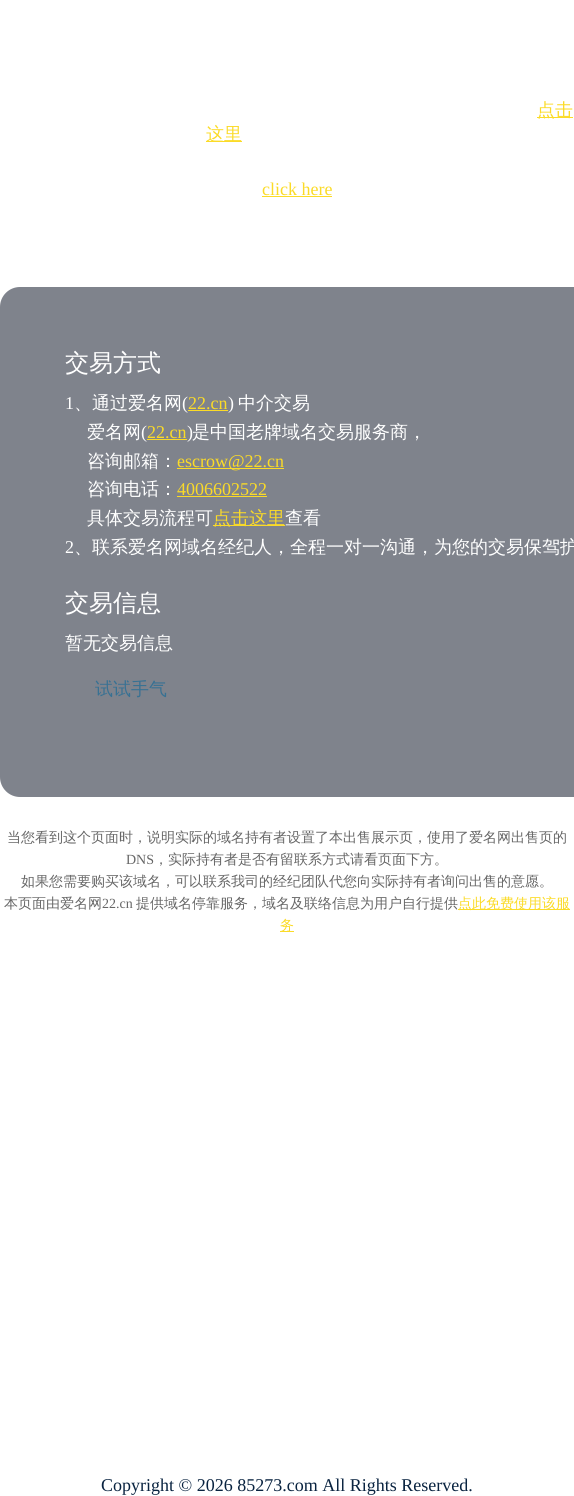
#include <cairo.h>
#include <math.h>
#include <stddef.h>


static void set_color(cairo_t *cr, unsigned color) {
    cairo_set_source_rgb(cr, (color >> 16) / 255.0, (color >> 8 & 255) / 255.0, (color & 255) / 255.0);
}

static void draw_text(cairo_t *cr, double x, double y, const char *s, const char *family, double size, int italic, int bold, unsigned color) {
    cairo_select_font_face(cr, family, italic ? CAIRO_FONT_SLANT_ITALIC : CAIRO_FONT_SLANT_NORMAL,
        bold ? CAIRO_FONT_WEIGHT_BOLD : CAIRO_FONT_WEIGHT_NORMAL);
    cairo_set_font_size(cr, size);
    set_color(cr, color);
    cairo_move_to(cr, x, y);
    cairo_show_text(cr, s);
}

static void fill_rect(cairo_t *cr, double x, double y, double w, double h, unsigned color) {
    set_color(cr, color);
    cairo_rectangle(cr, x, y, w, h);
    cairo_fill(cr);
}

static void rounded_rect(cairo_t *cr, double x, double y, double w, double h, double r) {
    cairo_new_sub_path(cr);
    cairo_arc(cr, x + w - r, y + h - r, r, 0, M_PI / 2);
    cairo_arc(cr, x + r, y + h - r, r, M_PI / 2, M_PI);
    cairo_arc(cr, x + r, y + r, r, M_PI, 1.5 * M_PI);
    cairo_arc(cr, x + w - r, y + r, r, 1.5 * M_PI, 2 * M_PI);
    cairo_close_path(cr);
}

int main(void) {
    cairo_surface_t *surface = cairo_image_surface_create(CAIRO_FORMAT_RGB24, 574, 1496);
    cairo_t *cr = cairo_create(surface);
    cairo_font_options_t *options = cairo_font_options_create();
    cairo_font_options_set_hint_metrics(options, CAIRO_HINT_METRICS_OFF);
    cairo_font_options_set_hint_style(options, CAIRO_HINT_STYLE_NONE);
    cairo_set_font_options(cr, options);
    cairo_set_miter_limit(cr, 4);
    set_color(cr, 0xFFFFFF);
    cairo_paint(cr);
    fill_rect(cr, 537, 117, 36, 1, 0xFBDB27);
    draw_text(cr, 537, 116, "点击", "WenQuanYi Zen Hei Medium", 18, 0, 0, 0xFBDB27);
    fill_rect(cr, 206, 141, 36, 1, 0xFBDB27);
    draw_text(cr, 206, 140, "这里", "WenQuanYi Zen Hei Medium", 18, 0, 0, 0xFBDB27);
    draw_text(cr, 262, 195, "click here", "Liberation Serif", 18, 0, 0, 0xFBDB27);
    fill_rect(cr, 262, 196, 70, 1, 0xFBDB27);
    set_color(cr, 0x7F838C);
    rounded_rect(cr, 0, 287, 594, 510, 20);
    cairo_fill(cr);
    draw_text(cr, 65, 371, "交易方式", "WenQuanYi Zen Hei Medium", 24, 0, 0, 0xFFFFFF);
    draw_text(cr, 65, 409, "1", "Liberation Serif", 18, 0, 0, 0xFFFFFF);
    draw_text(cr, 74, 409, "、通过爱名网", "WenQuanYi Zen Hei Medium", 18, 0, 0, 0xFFFFFF);
    draw_text(cr, 182, 409, "(", "Liberation Serif", 18, 0, 0, 0xFFFFFF);
    draw_text(cr, 188, 409, "22.cn", "Liberation Serif", 18, 0, 0, 0xFBDB27);
    fill_rect(cr, 188, 410, 40, 1, 0xFBDB27);
    draw_text(cr, 228, 409, ")", "Liberation Serif", 18, 0, 0, 0xFFFFFF);
    draw_text(cr, 238, 409, "中介交易", "WenQuanYi Zen Hei Medium", 18, 0, 0, 0xFFFFFF);
    draw_text(cr, 87, 438, "爱名网", "WenQuanYi Zen Hei Medium", 18, 0, 0, 0xFFFFFF);
    draw_text(cr, 141, 438, "(", "Liberation Serif", 18, 0, 0, 0xFFFFFF);
    draw_text(cr, 147, 438, "22.cn", "Liberation Serif", 18, 0, 0, 0xFBDB27);
    fill_rect(cr, 147, 439, 40, 1, 0xFBDB27);
    draw_text(cr, 187, 438, ")", "Liberation Serif", 18, 0, 0, 0xFFFFFF);
    draw_text(cr, 192, 438, "是中国老牌域名交易服务商，", "WenQuanYi Zen Hei Medium", 18, 0, 0, 0xFFFFFF);
    draw_text(cr, 87, 467, "咨询邮箱：", "WenQuanYi Zen Hei Medium", 18, 0, 0, 0xFFFFFF);
    fill_rect(cr, 177, 468, 107, 1, 0xFBDB27);
    draw_text(cr, 177, 467, "escrow@22.cn", "Liberation Serif", 18, 0, 0, 0xFBDB27);
    draw_text(cr, 87, 495, "咨询电话：", "WenQuanYi Zen Hei Medium", 18, 0, 0, 0xFFFFFF);
    draw_text(cr, 177, 495, "4006602522", "Liberation Serif", 18, 0, 0, 0xFBDB27);
    fill_rect(cr, 177, 496, 90, 1, 0xFBDB27);
    draw_text(cr, 87, 524, "具体交易流程可", "WenQuanYi Zen Hei Medium", 18, 0, 0, 0xFFFFFF);
    fill_rect(cr, 213, 525, 72, 1, 0xFBDB27);
    draw_text(cr, 213, 524, "点击这里", "WenQuanYi Zen Hei Medium", 18, 0, 0, 0xFBDB27);
    draw_text(cr, 285, 524, "查看", "WenQuanYi Zen Hei Medium", 18, 0, 0, 0xFFFFFF);
    draw_text(cr, 65, 553, "2", "Liberation Serif", 18, 0, 0, 0xFFFFFF);
    draw_text(cr, 74, 553, "、联系爱名网域名经纪人，全程一对一沟通，为您的交易保驾护", "WenQuanYi Zen Hei Medium", 18, 0, 0, 0xFFFFFF);
    draw_text(cr, 65, 611, "交易信息", "WenQuanYi Zen Hei Medium", 24, 0, 0, 0xFFFFFF);
    draw_text(cr, 65, 649, "暂无交易信息", "WenQuanYi Zen Hei Medium", 18, 0, 0, 0xFFFFFF);
    draw_text(cr, 95, 695, "试试手气", "WenQuanYi Zen Hei Medium", 18, 0, 0, 0x387193);
    draw_text(cr, 7, 842, "当您看到这个页面时，说明实际的域名持有者设置了本出售展示页，使用了爱名网出售页的", "WenQuanYi Zen Hei Medium", 14, 0, 0, 0x666666);
    draw_text(cr, 126, 864, "DNS", "Liberation Serif", 14, 0, 0, 0x666666);
    draw_text(cr, 154, 864, "，实际持有者是否有留联系方式请看页面下方。", "WenQuanYi Zen Hei Medium", 14, 0, 0, 0x666666);
    draw_text(cr, 21, 886, "如果您需要购买该域名，可以联系我司的经纪团队代您向实际持有者询问出售的意愿。", "WenQuanYi Zen Hei Medium", 14, 0, 0, 0x666666);
    draw_text(cr, 4, 908, "本页面由爱名网", "WenQuanYi Zen Hei Medium", 14, 0, 0, 0x666666);
    draw_text(cr, 102, 908, "22.cn", "Liberation Serif", 14, 0, 0, 0x666666);
    draw_text(cr, 136, 908, "提供域名停靠服务，域名及联络信息为用户自行提供", "WenQuanYi Zen Hei Medium", 14, 0, 0, 0x666666);
    fill_rect(cr, 458, 909, 112, 1, 0xFBDB27);
    draw_text(cr, 458, 908, "点此免费使用该服", "WenQuanYi Zen Hei Medium", 14, 0, 0, 0xFBDB27);
    fill_rect(cr, 280, 931, 14, 1, 0xFBDB27);
    draw_text(cr, 280, 930, "务", "WenQuanYi Zen Hei Medium", 14, 0, 0, 0xFBDB27);
    draw_text(cr, 101, 1491, "Copyright © 2026 85273.com All Rights Reserved.", "Liberation Serif", 18, 0, 0, 0x092340);
    cairo_surface_write_to_png(surface, "output.png");
    cairo_font_options_destroy(options);
    cairo_destroy(cr);
    cairo_surface_destroy(surface);
    return 0;
}
